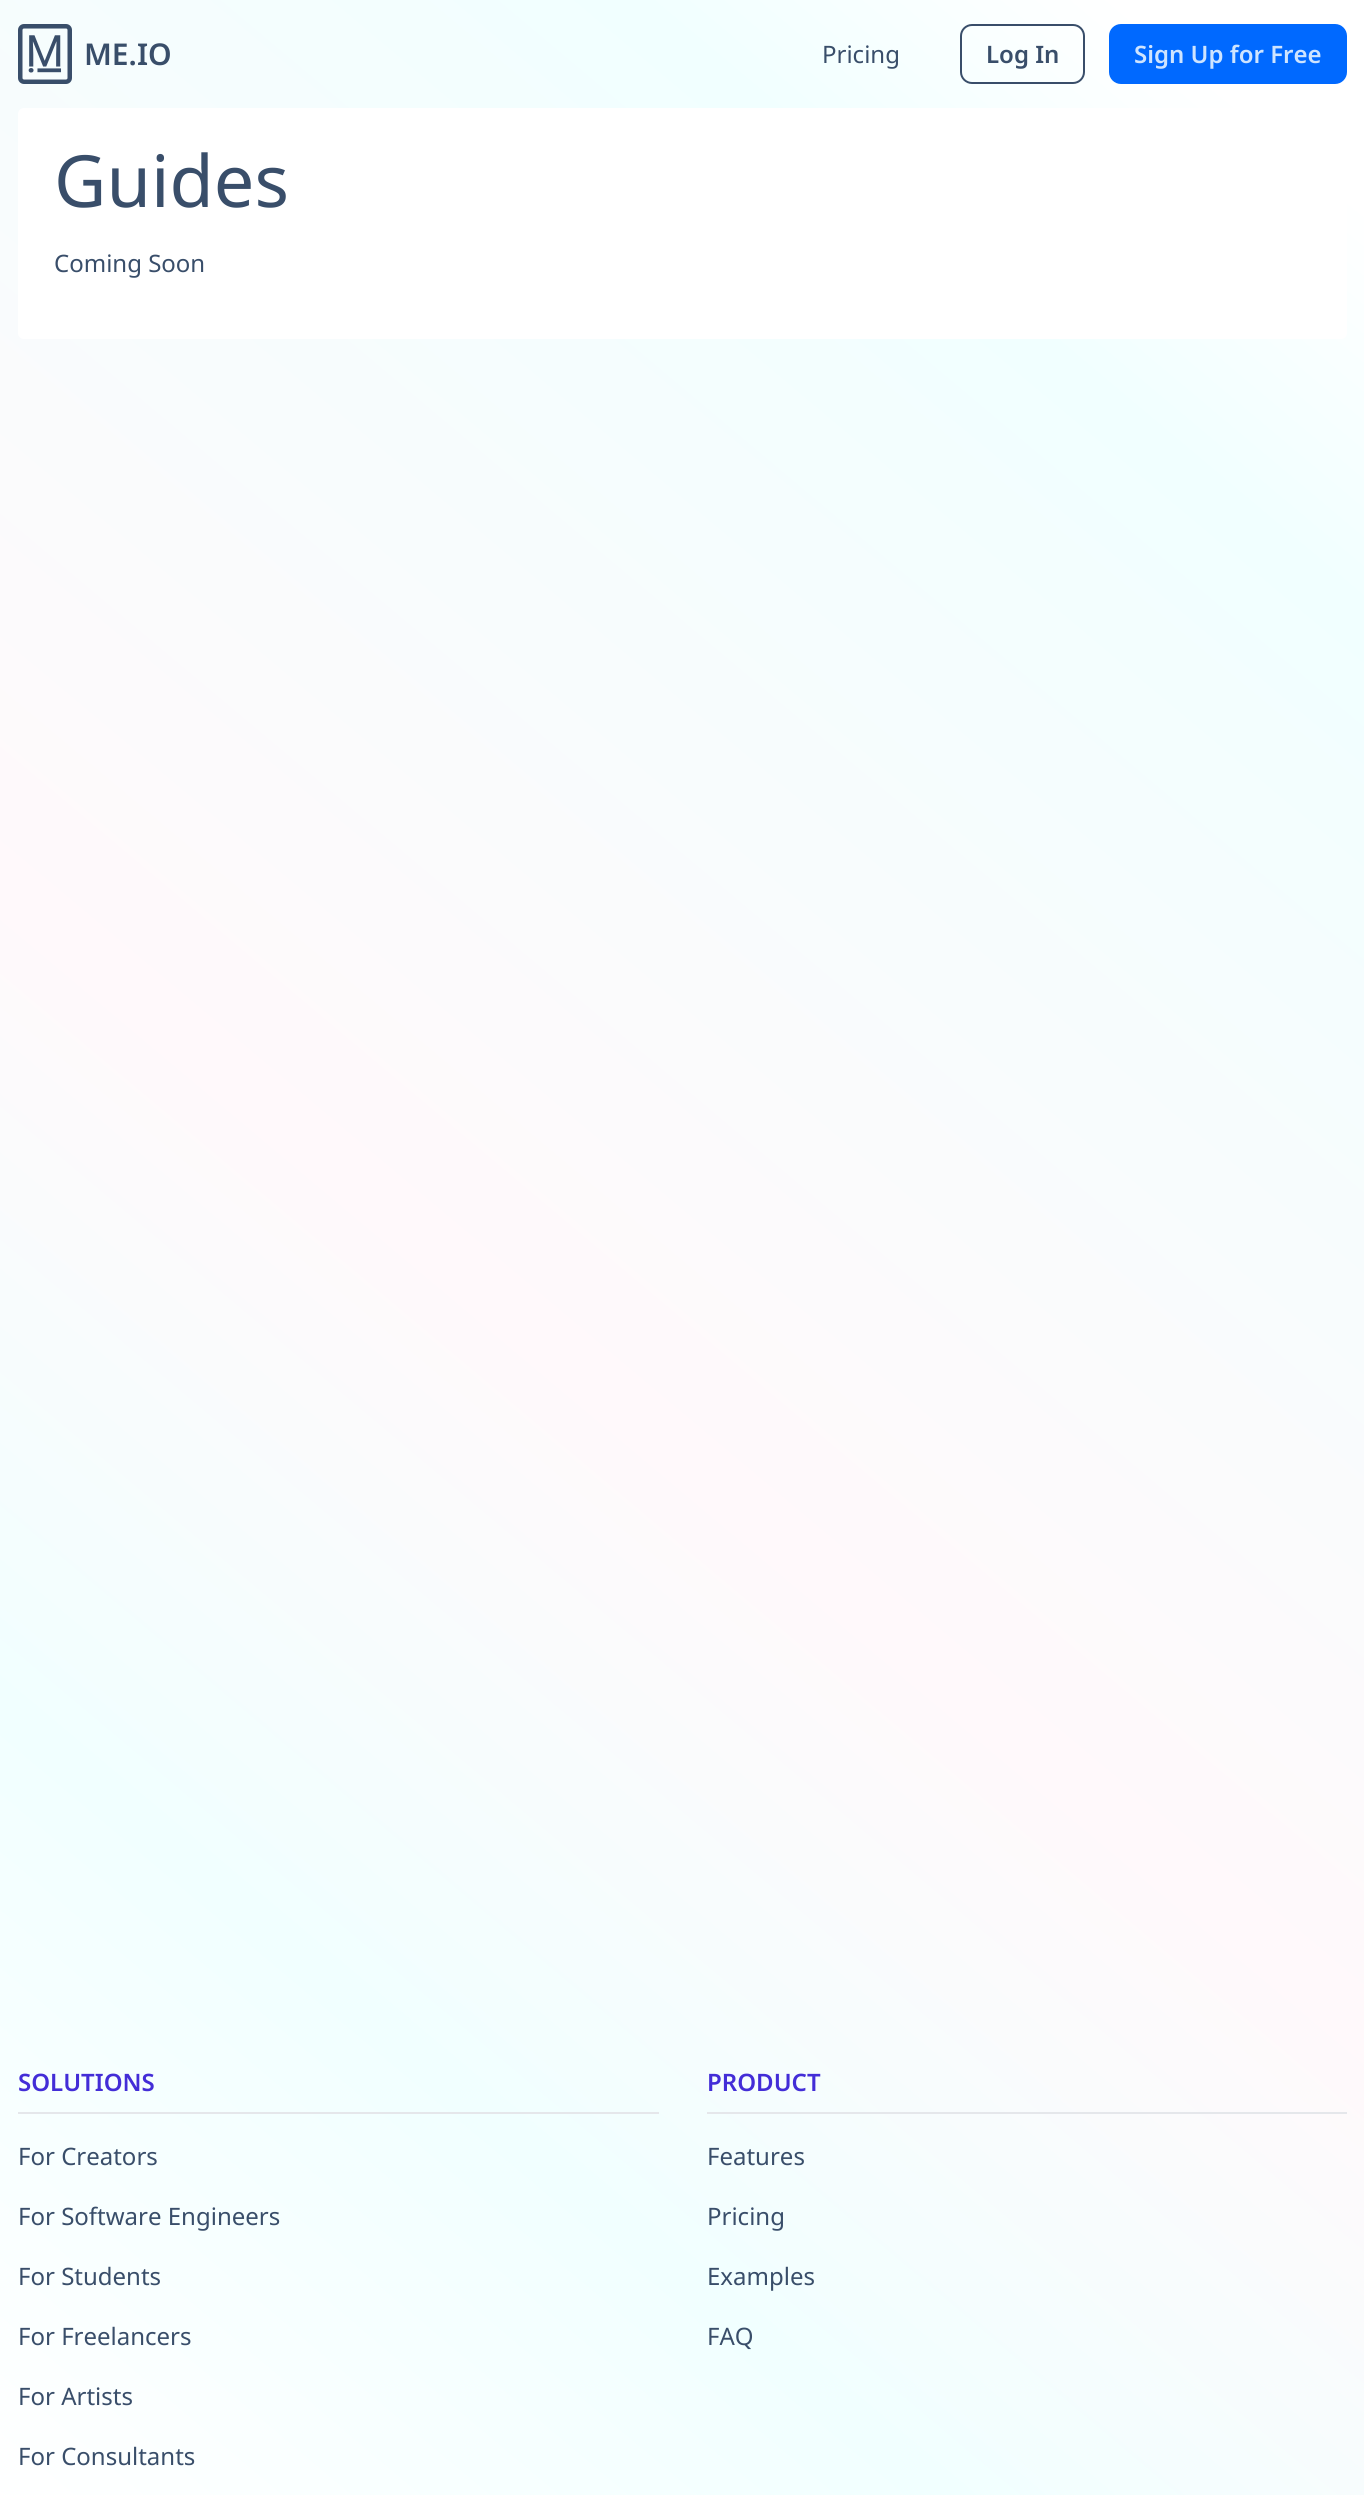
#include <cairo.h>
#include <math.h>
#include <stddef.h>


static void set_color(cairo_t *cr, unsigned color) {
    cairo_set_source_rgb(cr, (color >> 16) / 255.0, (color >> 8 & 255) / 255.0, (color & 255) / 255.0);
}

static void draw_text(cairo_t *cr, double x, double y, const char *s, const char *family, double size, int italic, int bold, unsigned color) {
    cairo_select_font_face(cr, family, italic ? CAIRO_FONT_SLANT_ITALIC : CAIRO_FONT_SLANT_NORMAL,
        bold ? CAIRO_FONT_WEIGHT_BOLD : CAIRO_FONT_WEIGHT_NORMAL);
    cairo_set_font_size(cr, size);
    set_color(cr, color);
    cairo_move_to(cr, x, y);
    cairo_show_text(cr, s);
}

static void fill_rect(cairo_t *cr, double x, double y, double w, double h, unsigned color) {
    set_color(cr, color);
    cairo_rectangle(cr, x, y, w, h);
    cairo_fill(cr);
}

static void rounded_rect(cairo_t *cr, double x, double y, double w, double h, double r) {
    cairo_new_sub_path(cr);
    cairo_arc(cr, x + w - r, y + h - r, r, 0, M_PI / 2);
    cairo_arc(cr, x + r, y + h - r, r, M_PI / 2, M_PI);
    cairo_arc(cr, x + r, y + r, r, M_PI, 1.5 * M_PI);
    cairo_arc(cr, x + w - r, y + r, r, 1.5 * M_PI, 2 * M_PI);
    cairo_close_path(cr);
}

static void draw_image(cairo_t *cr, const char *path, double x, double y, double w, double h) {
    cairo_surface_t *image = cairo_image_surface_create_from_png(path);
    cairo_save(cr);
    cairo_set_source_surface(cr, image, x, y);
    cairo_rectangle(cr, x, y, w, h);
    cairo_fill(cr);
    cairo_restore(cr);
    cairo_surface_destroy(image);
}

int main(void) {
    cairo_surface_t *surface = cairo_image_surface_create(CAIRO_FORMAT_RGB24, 1364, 2495);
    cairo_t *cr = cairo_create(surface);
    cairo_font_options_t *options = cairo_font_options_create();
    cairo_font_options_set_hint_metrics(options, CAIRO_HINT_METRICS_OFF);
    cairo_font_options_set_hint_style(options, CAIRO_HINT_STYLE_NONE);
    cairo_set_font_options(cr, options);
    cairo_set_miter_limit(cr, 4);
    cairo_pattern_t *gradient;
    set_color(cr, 0xFFFFFF);
    cairo_paint(cr);
    gradient = cairo_pattern_create_linear(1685, 269, -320, 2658);
    cairo_pattern_add_color_stop_rgba(gradient, 0.05, 1, 1, 1, 1);
    cairo_pattern_add_color_stop_rgba(gradient, 0.15, 0.945, 1, 1, 1);
    cairo_pattern_add_color_stop_rgba(gradient, 0.5, 1, 0.976, 0.984, 1);
    cairo_pattern_add_color_stop_rgba(gradient, 0.7, 0.945, 1, 1, 1);
    cairo_pattern_add_color_stop_rgba(gradient, 0.9, 1, 1, 1, 1);
    cairo_set_source(cr, gradient);
    cairo_pattern_destroy(gradient);
    cairo_rectangle(cr, 0, 0, 1364, 2495);
    cairo_fill(cr);
    draw_image(cr, "assets/img1.png", 18, 24, 54, 60);
    draw_text(cr, 84, 65, "ME.IO", "Noto Sans SemiBold", 30, 0, 0, 0x394E6A);
    draw_text(cr, 822, 63, "Pricing", "Noto Sans", 24, 0, 0, 0x394E6A);
    rounded_rect(cr, 961, 25, 123, 58, 11);
    cairo_stroke(cr);
    draw_text(cr, 986, 63, "Log In", "Noto Sans SemiBold", 24, 0, 0, 0x394E6A);
    set_color(cr, 0x0069FF);
    rounded_rect(cr, 1110, 25, 236, 58, 11);
    cairo_fill_preserve(cr);
    cairo_stroke(cr);
    draw_text(cr, 1134, 63, "Sign Up for Free", "Noto Sans SemiBold", 24, 0, 0, 0xCEE4FF);
    set_color(cr, 0xFFFFFF);
    rounded_rect(cr, 18, 108, 1329, 231, 6);
    cairo_fill(cr);
    draw_text(cr, 54, 207, "Guides", "Noto Sans", 72, 0, 0, 0x394E6A);
    draw_text(cr, 54, 272, "Coming Soon", "Noto Sans", 24, 0, 0, 0x394E6A);
    fill_rect(cr, 18, 2112, 641, 2, 0xE5E7EB);
    draw_text(cr, 18, 2091, "SOLUTIONS", "Noto Sans SemiBold", 24, 0, 0, 0x432DD7);
    draw_text(cr, 18, 2165, "For Creators", "Noto Sans", 24, 0, 0, 0x394E6A);
    draw_text(cr, 18, 2225, "For Software Engineers", "Noto Sans", 24, 0, 0, 0x394E6A);
    draw_text(cr, 18, 2285, "For Students", "Noto Sans", 24, 0, 0, 0x394E6A);
    draw_text(cr, 18, 2345, "For Freelancers", "Noto Sans", 24, 0, 0, 0x394E6A);
    draw_text(cr, 18, 2405, "For Artists", "Noto Sans", 24, 0, 0, 0x394E6A);
    draw_text(cr, 18, 2465, "For Consultants", "Noto Sans", 24, 0, 0, 0x394E6A);
    fill_rect(cr, 707, 2112, 640, 2, 0xE5E7EB);
    draw_text(cr, 707, 2091, "PRODUCT", "Noto Sans SemiBold", 24, 0, 0, 0x432DD7);
    draw_text(cr, 707, 2165, "Features", "Noto Sans", 24, 0, 0, 0x394E6A);
    draw_text(cr, 707, 2225, "Pricing", "Noto Sans", 24, 0, 0, 0x394E6A);
    draw_text(cr, 707, 2285, "Examples", "Noto Sans", 24, 0, 0, 0x394E6A);
    draw_text(cr, 707, 2345, "FAQ", "Noto Sans", 24, 0, 0, 0x394E6A);
    cairo_surface_write_to_png(surface, "output.png");
    cairo_font_options_destroy(options);
    cairo_destroy(cr);
    cairo_surface_destroy(surface);
    return 0;
}
